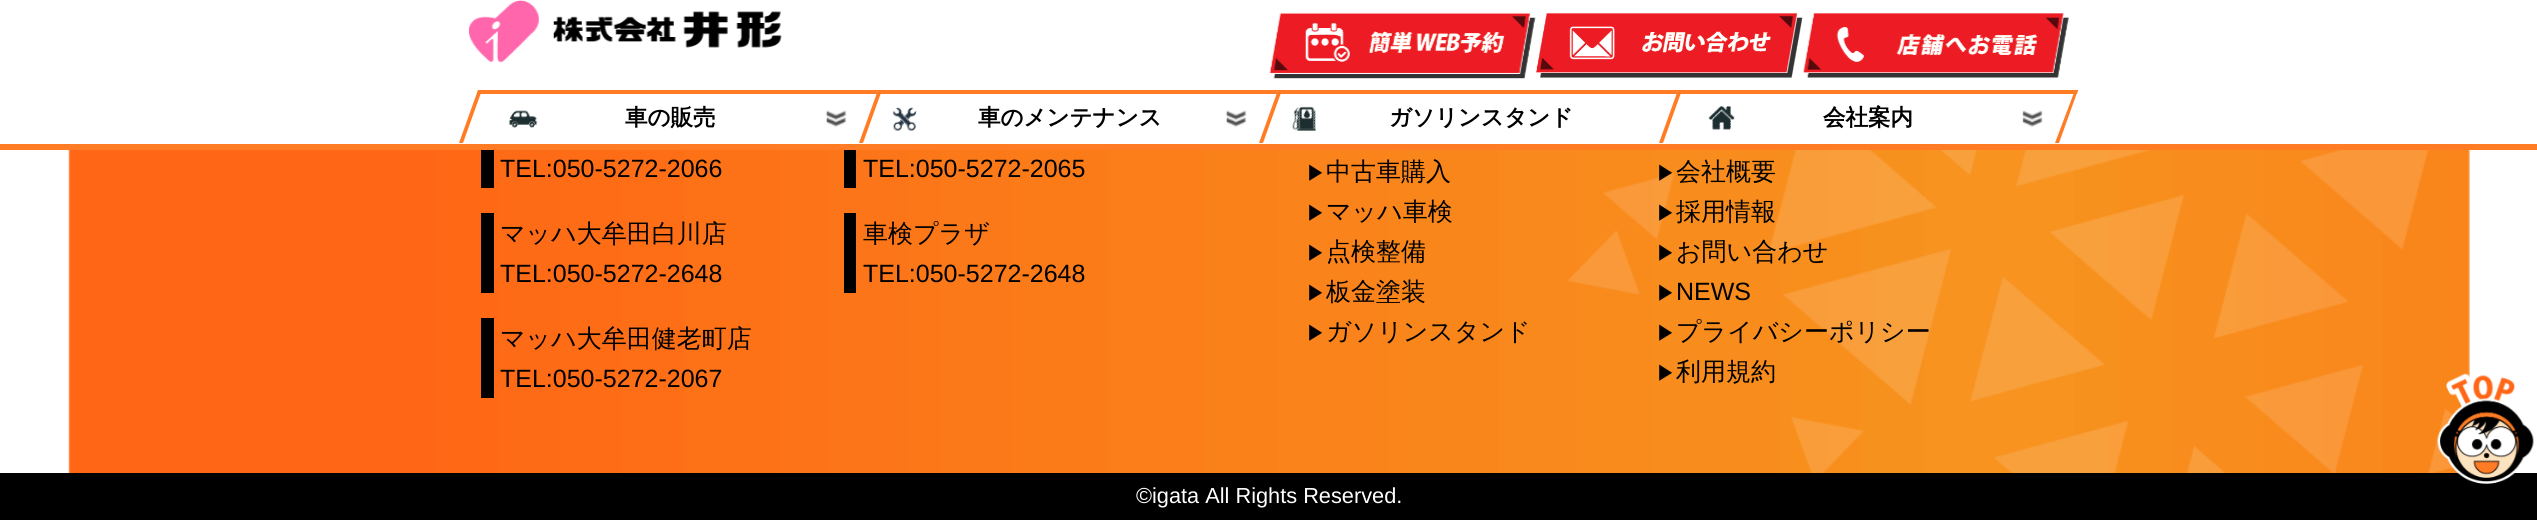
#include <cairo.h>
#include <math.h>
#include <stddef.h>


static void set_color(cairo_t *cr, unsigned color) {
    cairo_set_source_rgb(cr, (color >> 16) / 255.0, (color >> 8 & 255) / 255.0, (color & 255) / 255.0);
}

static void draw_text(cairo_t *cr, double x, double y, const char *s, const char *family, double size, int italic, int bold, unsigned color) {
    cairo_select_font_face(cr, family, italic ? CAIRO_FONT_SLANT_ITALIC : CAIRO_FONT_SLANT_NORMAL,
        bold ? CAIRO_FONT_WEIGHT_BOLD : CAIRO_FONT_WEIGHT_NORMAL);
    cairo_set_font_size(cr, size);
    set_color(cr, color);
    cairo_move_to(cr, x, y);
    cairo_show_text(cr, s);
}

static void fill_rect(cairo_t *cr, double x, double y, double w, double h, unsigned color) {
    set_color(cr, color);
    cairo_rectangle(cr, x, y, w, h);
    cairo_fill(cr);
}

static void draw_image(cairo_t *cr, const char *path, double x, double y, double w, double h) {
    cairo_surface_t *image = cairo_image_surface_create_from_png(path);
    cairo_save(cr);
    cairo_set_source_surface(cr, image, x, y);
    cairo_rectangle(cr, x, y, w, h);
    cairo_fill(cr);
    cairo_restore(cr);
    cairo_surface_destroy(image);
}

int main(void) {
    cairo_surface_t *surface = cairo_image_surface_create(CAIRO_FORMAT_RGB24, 2537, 520);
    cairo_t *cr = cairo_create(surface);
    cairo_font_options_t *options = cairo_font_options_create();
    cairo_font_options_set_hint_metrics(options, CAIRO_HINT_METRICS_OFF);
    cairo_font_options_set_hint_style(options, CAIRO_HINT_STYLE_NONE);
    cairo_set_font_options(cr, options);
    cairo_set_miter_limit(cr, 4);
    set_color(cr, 0xFFFFFF);
    cairo_paint(cr);
    fill_rect(cr, 0, 144, 2537, 6, 0xFF7B24);
    draw_image(cr, "assets/img1.png", 469, 0, 313, 63);
    draw_image(cr, "assets/img2.png", 1269, 12, 267, 67);
    draw_image(cr, "assets/img3.png", 1536, 13, 267, 65);
    draw_image(cr, "assets/img4.png", 1803, 13, 266, 65);
    cairo_new_path(cr);
    cairo_move_to(cr, 478, 90);
    cairo_line_to(cr, 878, 90);
    cairo_line_to(cr, 877, 94);
    cairo_line_to(cr, 477, 94);
    cairo_close_path(cr);
    cairo_fill(cr);
    cairo_new_path(cr);
    cairo_move_to(cr, 478, 90);
    cairo_line_to(cr, 482, 90);
    cairo_line_to(cr, 463, 143);
    cairo_line_to(cr, 459, 143);
    cairo_close_path(cr);
    cairo_fill(cr);
    draw_image(cr, "assets/img5.png", 508, 110, 339, 18);
    draw_text(cr, 625, 125, "車の販売", "WenQuanYi Zen Hei", 22.5, 0, 1, 0x000000);
    set_color(cr, 0xFF7B24);
    cairo_new_path(cr);
    cairo_move_to(cr, 878, 90);
    cairo_line_to(cr, 1278, 90);
    cairo_line_to(cr, 1277, 94);
    cairo_line_to(cr, 877, 94);
    cairo_close_path(cr);
    cairo_fill(cr);
    cairo_new_path(cr);
    cairo_move_to(cr, 878, 90);
    cairo_line_to(cr, 882, 90);
    cairo_line_to(cr, 863, 143);
    cairo_line_to(cr, 859, 143);
    cairo_close_path(cr);
    cairo_fill(cr);
    draw_image(cr, "assets/img6.png", 892, 107, 355, 24);
    draw_text(cr, 978, 125, "車のメンテナンス", "WenQuanYi Zen Hei", 22.5, 0, 1, 0x000000);
    set_color(cr, 0xFF7B24);
    cairo_new_path(cr);
    cairo_move_to(cr, 1278, 90);
    cairo_line_to(cr, 1678, 90);
    cairo_line_to(cr, 1677, 94);
    cairo_line_to(cr, 1277, 94);
    cairo_close_path(cr);
    cairo_fill(cr);
    cairo_new_path(cr);
    cairo_move_to(cr, 1278, 90);
    cairo_line_to(cr, 1282, 90);
    cairo_line_to(cr, 1263, 143);
    cairo_line_to(cr, 1259, 143);
    cairo_close_path(cr);
    cairo_fill(cr);
    draw_image(cr, "assets/img7.png", 1292, 106, 24, 25);
    draw_text(cr, 1389, 125, "ガソリンスタンド", "WenQuanYi Zen Hei", 22.5, 0, 1, 0x000000);
    set_color(cr, 0xFF7B24);
    cairo_new_path(cr);
    cairo_move_to(cr, 1678, 90);
    cairo_line_to(cr, 2078, 90);
    cairo_line_to(cr, 2077, 94);
    cairo_line_to(cr, 1677, 94);
    cairo_close_path(cr);
    cairo_fill(cr);
    cairo_new_path(cr);
    cairo_move_to(cr, 2075, 90);
    cairo_line_to(cr, 2078, 90);
    cairo_line_to(cr, 2059, 143);
    cairo_line_to(cr, 2055, 143);
    cairo_close_path(cr);
    cairo_fill(cr);
    cairo_new_path(cr);
    cairo_move_to(cr, 1678, 90);
    cairo_line_to(cr, 1682, 90);
    cairo_line_to(cr, 1663, 143);
    cairo_line_to(cr, 1659, 143);
    cairo_close_path(cr);
    cairo_fill(cr);
    draw_image(cr, "assets/img8.png", 1708, 106, 335, 24);
    draw_text(cr, 1823, 125, "会社案内", "WenQuanYi Zen Hei", 22.5, 0, 1, 0x000000);
    draw_image(cr, "assets/img9.png", 68, 150, 2402, 323);
    fill_rect(cr, 481, 150, 13, 38, 0x000000);
    draw_text(cr, 500, 177, "TEL:050-5272-2066", "Liberation Sans", 25, 0, 0, 0x000000);
    fill_rect(cr, 844, 150, 12, 38, 0x000000);
    draw_text(cr, 863, 177, "TEL:050-5272-2065", "Liberation Sans", 25, 0, 0, 0x000000);
    fill_rect(cr, 481, 213, 13, 80, 0x000000);
    draw_text(cr, 500, 242, "マッハ大牟田白川店", "WenQuanYi Zen Hei Medium", 25, 0, 0, 0x000000);
    draw_text(cr, 500, 282, "TEL:050-5272-2648", "Liberation Sans", 25, 0, 0, 0x000000);
    fill_rect(cr, 844, 213, 12, 80, 0x000000);
    draw_text(cr, 863, 242, "車検プラザ", "WenQuanYi Zen Hei Medium", 25, 0, 0, 0x000000);
    draw_text(cr, 863, 282, "TEL:050-5272-2648", "Liberation Sans", 25, 0, 0, 0x000000);
    fill_rect(cr, 481, 318, 13, 80, 0x000000);
    draw_text(cr, 500, 347, "マッハ大牟田健老町店", "WenQuanYi Zen Hei Medium", 25, 0, 0, 0x000000);
    draw_text(cr, 500, 387, "TEL:050-5272-2067", "Liberation Sans", 25, 0, 0, 0x000000);
    draw_text(cr, 1306, 180, "▶", "WenQuanYi Zen Hei Medium", 20, 0, 0, 0x000000);
    draw_text(cr, 1326, 180, "中古車購入", "WenQuanYi Zen Hei Medium", 25, 0, 0, 0x000000);
    draw_text(cr, 1306, 220, "▶", "WenQuanYi Zen Hei Medium", 20, 0, 0, 0x000000);
    draw_text(cr, 1326, 220, "マッハ車検", "WenQuanYi Zen Hei Medium", 25, 0, 0, 0x000000);
    draw_text(cr, 1306, 260, "▶", "WenQuanYi Zen Hei Medium", 20, 0, 0, 0x000000);
    draw_text(cr, 1326, 260, "点検整備", "WenQuanYi Zen Hei Medium", 25, 0, 0, 0x000000);
    draw_text(cr, 1306, 300, "▶", "WenQuanYi Zen Hei Medium", 20, 0, 0, 0x000000);
    draw_text(cr, 1326, 300, "板金塗装", "WenQuanYi Zen Hei Medium", 25, 0, 0, 0x000000);
    draw_text(cr, 1306, 340, "▶", "WenQuanYi Zen Hei Medium", 20, 0, 0, 0x000000);
    draw_text(cr, 1326, 340, "ガソリンスタンド", "WenQuanYi Zen Hei Medium", 25, 0, 0, 0x000000);
    draw_text(cr, 1656, 180, "▶", "WenQuanYi Zen Hei Medium", 20, 0, 0, 0x000000);
    draw_text(cr, 1676, 180, "会社概要", "WenQuanYi Zen Hei Medium", 25, 0, 0, 0x000000);
    draw_text(cr, 1656, 220, "▶", "WenQuanYi Zen Hei Medium", 20, 0, 0, 0x000000);
    draw_text(cr, 1676, 220, "採用情報", "WenQuanYi Zen Hei Medium", 25, 0, 0, 0x000000);
    draw_text(cr, 1656, 260, "▶", "WenQuanYi Zen Hei Medium", 20, 0, 0, 0x000000);
    draw_text(cr, 1676, 260, "お問い合わせ", "WenQuanYi Zen Hei Medium", 25, 0, 0, 0x000000);
    draw_text(cr, 1656, 300, "▶", "WenQuanYi Zen Hei Medium", 20, 0, 0, 0x000000);
    draw_text(cr, 1676, 300, "NEWS", "Liberation Sans", 25, 0, 0, 0x000000);
    draw_text(cr, 1656, 340, "▶", "WenQuanYi Zen Hei Medium", 20, 0, 0, 0x000000);
    draw_text(cr, 1676, 340, "プライバシーポリシー", "WenQuanYi Zen Hei Medium", 25, 0, 0, 0x000000);
    draw_text(cr, 1656, 380, "▶", "WenQuanYi Zen Hei Medium", 20, 0, 0, 0x000000);
    draw_text(cr, 1676, 380, "利用規約", "WenQuanYi Zen Hei Medium", 25, 0, 0, 0x000000);
    fill_rect(cr, 0, 473, 2537, 47, 0x000000);
    draw_image(cr, "assets/img10.png", 2437, 373, 97, 111);
    draw_text(cr, 1136, 503, "©igata All Rights Reserved.", "Liberation Sans", 21.75, 0, 0, 0xFFFFFF);
    cairo_surface_write_to_png(surface, "output.png");
    cairo_font_options_destroy(options);
    cairo_destroy(cr);
    cairo_surface_destroy(surface);
    return 0;
}
